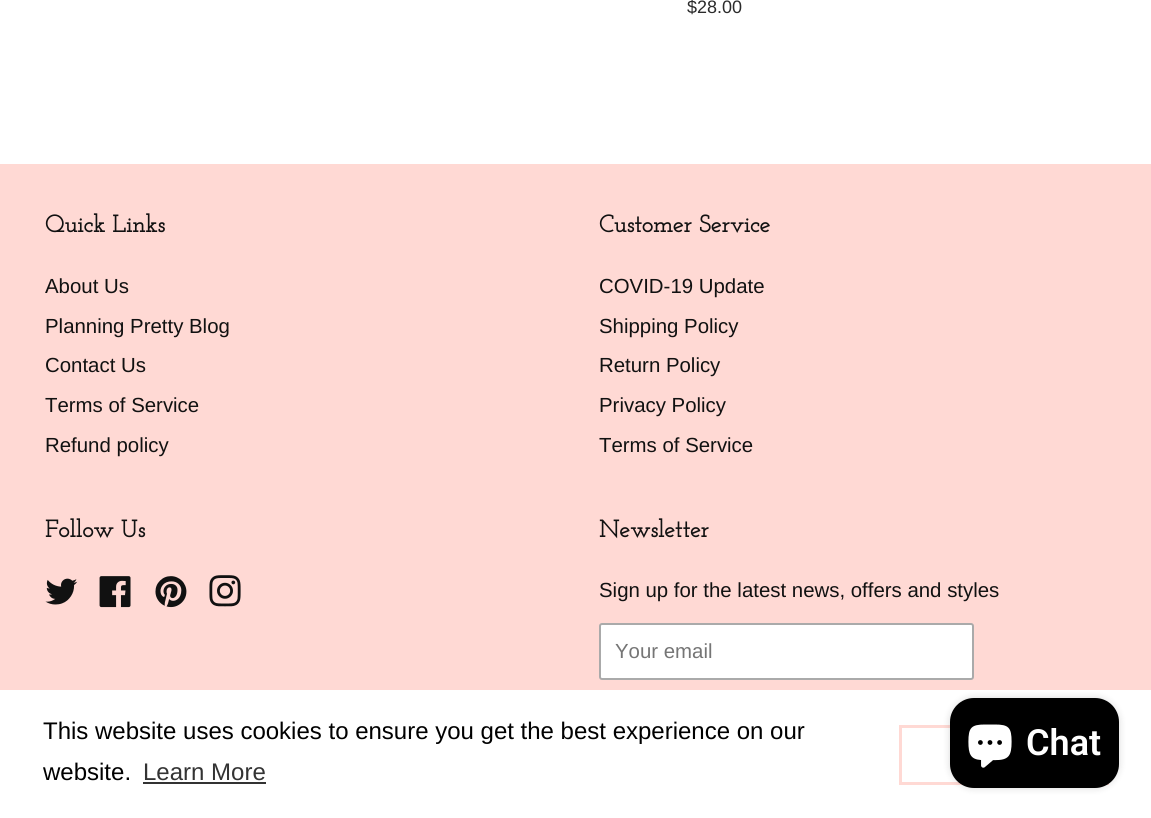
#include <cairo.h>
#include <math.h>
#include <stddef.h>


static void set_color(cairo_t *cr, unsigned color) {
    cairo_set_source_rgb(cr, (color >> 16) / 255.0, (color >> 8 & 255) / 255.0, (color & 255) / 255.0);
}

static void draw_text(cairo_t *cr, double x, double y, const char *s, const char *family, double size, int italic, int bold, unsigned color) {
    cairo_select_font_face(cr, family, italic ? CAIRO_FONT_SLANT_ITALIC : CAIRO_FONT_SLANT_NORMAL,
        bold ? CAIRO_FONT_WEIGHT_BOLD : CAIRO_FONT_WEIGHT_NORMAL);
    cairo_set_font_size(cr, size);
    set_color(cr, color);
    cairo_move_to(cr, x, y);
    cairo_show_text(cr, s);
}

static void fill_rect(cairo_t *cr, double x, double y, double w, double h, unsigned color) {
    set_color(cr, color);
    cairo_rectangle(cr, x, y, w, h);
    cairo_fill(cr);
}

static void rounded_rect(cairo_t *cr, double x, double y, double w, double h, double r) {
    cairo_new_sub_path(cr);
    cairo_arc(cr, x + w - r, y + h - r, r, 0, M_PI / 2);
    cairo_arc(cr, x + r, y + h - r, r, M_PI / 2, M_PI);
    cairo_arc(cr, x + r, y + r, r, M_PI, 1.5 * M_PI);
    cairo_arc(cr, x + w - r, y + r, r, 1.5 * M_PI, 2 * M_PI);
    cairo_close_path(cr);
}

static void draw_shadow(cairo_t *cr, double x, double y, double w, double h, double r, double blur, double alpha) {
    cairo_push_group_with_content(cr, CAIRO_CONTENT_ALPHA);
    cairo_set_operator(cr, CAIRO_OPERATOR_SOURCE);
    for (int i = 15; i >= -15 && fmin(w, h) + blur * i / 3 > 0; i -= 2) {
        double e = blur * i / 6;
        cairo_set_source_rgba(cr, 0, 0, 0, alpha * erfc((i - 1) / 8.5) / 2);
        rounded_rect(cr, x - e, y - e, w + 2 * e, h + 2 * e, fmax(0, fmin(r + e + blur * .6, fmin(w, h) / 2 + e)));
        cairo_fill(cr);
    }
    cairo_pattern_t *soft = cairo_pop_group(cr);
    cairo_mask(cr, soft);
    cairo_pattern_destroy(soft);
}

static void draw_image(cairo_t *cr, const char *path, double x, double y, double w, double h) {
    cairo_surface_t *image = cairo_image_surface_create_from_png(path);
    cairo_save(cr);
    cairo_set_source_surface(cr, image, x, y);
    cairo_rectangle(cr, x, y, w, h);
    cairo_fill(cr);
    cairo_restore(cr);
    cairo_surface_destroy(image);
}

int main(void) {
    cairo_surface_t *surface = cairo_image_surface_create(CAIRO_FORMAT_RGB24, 1151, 818);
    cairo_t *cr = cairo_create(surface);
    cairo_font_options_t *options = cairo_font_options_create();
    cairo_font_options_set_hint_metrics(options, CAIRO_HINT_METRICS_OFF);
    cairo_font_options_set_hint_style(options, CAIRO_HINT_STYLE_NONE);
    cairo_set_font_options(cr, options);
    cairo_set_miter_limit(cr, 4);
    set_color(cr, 0xFFFFFF);
    cairo_paint(cr);
    draw_text(cr, 687, 13, "$28.00", "Liberation Sans", 18, 0, 0, 0x2B2B2B);
    fill_rect(cr, 0, 164, 1151, 526, 0xFFD9D4);
    draw_text(cr, 45, 232, "Quick Links", "Josefin Slab", 24, 0, 1, 0x111111);
    draw_text(cr, 45, 293, "About Us", "Liberation Sans", 20.4, 0, 0, 0x111111);
    draw_text(cr, 45, 333, "Planning Pretty Blog", "Liberation Sans", 20.4, 0, 0, 0x111111);
    draw_text(cr, 45, 372, "Contact Us", "Liberation Sans", 20.4, 0, 0, 0x111111);
    draw_text(cr, 45, 412, "Terms of Service", "Liberation Sans", 20.4, 0, 0, 0x111111);
    draw_text(cr, 45, 452, "Refund policy", "Liberation Sans", 20.4, 0, 0, 0x111111);
    draw_text(cr, 599, 232, "Customer Service", "Josefin Slab", 24, 0, 1, 0x111111);
    draw_text(cr, 599, 293, "COVID-19 Update", "Liberation Sans", 20.4, 0, 0, 0x111111);
    draw_text(cr, 599, 333, "Shipping Policy", "Liberation Sans", 20.4, 0, 0, 0x111111);
    draw_text(cr, 599, 372, "Return Policy", "Liberation Sans", 20.4, 0, 0, 0x111111);
    draw_text(cr, 599, 412, "Privacy Policy", "Liberation Sans", 20.4, 0, 0, 0x111111);
    draw_text(cr, 599, 452, "Terms of Service", "Liberation Sans", 20.4, 0, 0, 0x111111);
    draw_text(cr, 45, 537, "Follow Us", "Josefin Slab", 24, 0, 1, 0x111111);
    draw_image(cr, "assets/img1.png", 45, 578, 33, 27);
    draw_image(cr, "assets/img2.png", 99, 576, 32, 32);
    draw_image(cr, "assets/img3.png", 155, 576, 32, 32);
    draw_image(cr, "assets/img4.png", 209, 575, 32, 32);
    draw_text(cr, 599, 537, "Newsletter", "Josefin Slab", 24, 0, 1, 0x111111);
    draw_text(cr, 599, 597, "Sign up for the latest news, offers and styles", "Liberation Sans", 20.4, 0, 0, 0x111111);
    set_color(cr, 0xFFFFFF);
    rounded_rect(cr, 600, 624, 373, 55, 2);
    cairo_fill_preserve(cr);
    set_color(cr, 0xAAAAAA);
    cairo_stroke(cr);
    draw_text(cr, 615, 658, "Your email", "Liberation Sans", 20.4, 0, 0, 0x757575);
    draw_text(cr, 43, 739, "This website uses cookies to ensure you get the best experience on our", "Liberation Sans", 24, 0, 0, 0x000000);
    draw_text(cr, 43, 780, "website.", "Liberation Sans", 24, 0, 0, 0x000000);
    draw_text(cr, 143, 780, "Learn More", "Liberation Sans", 24, 0, 0, 0x333333);
    fill_rect(cr, 143, 782, 123, 2, 0x333333);
    cairo_rectangle(cr, 900.5, 726.5, 207, 57);
    set_color(cr, 0xFFD9D4);
    cairo_set_line_width(cr, 3);
    cairo_stroke(cr);
    set_color(cr, 0x000000);
    draw_shadow(cr, 950, 698, 169, 90, 24, 4, 0.15);
    set_color(cr, 0x000000);
    rounded_rect(cr, 950, 698, 169, 90, 24);
    cairo_fill(cr);
    draw_image(cr, "assets/img5.png", 968, 724, 44, 44);
    draw_text(cr, 1026, 755, "Chat", "Roboto SemiBold", 36, 0, 0, 0xFFFFFF);
    cairo_surface_write_to_png(surface, "output.png");
    cairo_font_options_destroy(options);
    cairo_destroy(cr);
    cairo_surface_destroy(surface);
    return 0;
}
